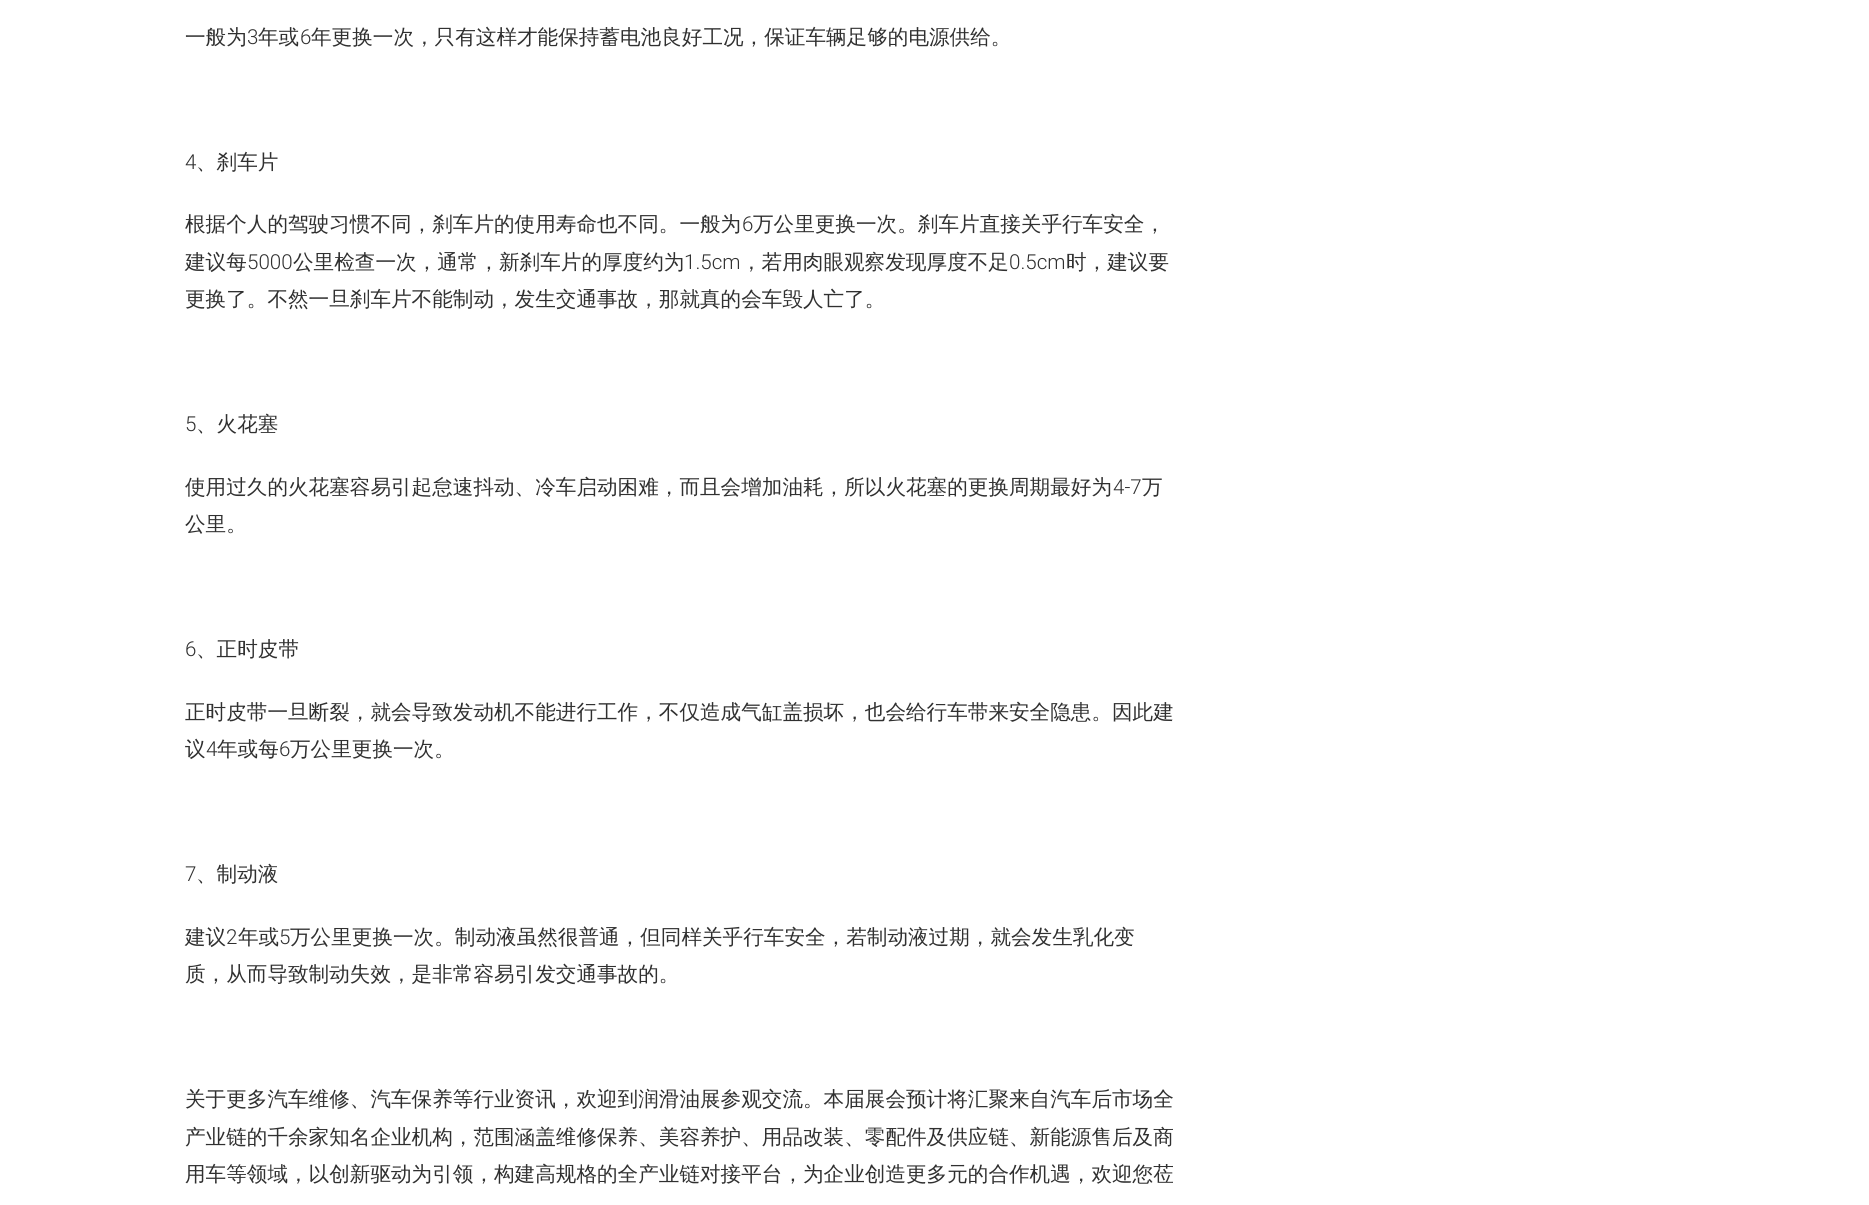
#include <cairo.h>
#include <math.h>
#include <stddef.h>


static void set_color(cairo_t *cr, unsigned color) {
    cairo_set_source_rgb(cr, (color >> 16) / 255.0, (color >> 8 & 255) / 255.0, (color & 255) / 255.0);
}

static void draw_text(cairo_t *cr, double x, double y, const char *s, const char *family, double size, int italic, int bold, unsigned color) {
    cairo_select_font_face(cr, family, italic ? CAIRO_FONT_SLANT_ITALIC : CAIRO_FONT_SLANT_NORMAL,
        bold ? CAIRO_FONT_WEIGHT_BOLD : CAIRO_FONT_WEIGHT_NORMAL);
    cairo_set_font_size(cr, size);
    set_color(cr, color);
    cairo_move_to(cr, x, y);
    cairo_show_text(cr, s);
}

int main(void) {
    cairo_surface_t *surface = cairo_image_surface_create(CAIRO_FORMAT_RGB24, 1869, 1205);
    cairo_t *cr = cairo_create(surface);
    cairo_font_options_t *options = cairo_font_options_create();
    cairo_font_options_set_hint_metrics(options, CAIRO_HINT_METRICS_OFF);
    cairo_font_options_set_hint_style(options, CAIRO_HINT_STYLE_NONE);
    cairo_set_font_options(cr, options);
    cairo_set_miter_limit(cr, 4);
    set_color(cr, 0xFFFFFF);
    cairo_paint(cr);
    draw_text(cr, 185, 44, "一般为", "WenQuanYi Zen Hei Medium", 20.6, 0, 0, 0x303030);
    draw_text(cr, 247, 44, "3", "Roboto Light", 20.6, 0, 0, 0x303030);
    draw_text(cr, 258, 44, "年或", "WenQuanYi Zen Hei Medium", 20.6, 0, 0, 0x303030);
    draw_text(cr, 300, 44, "6", "Roboto Light", 20.6, 0, 0, 0x303030);
    draw_text(cr, 311, 44, "年更换一次，只有这样才能保持蓄电池良好工况，保证车辆足够的电源供给。", "WenQuanYi Zen Hei Medium", 20.6, 0, 0, 0x303030);
    draw_text(cr, 185, 169, "4", "Roboto Light", 20.6, 0, 0, 0x303030);
    draw_text(cr, 196, 169, "、刹车片", "WenQuanYi Zen Hei Medium", 20.6, 0, 0, 0x303030);
    draw_text(cr, 185, 231, "根据个人的驾驶习惯不同，刹车片的使用寿命也不同。一般为", "WenQuanYi Zen Hei Medium", 20.6, 0, 0, 0x303030);
    draw_text(cr, 742, 231, "6", "Roboto Light", 20.6, 0, 0, 0x303030);
    draw_text(cr, 753, 231, "万公里更换一次。刹车片直接关乎行车安全，", "WenQuanYi Zen Hei Medium", 20.6, 0, 0, 0x303030);
    draw_text(cr, 185, 269, "建议每", "WenQuanYi Zen Hei Medium", 20.6, 0, 0, 0x303030);
    draw_text(cr, 247, 269, "5000", "Roboto Light", 20.6, 0, 0, 0x303030);
    draw_text(cr, 293, 269, "公里检查一次，通常，新刹车片的厚度约为", "WenQuanYi Zen Hei Medium", 20.6, 0, 0, 0x303030);
    draw_text(cr, 684, 269, "1.5cm", "Roboto Light", 20.6, 0, 0, 0x303030);
    draw_text(cr, 741, 269, "，若用肉眼观察发现厚度不足", "WenQuanYi Zen Hei Medium", 20.6, 0, 0, 0x303030);
    draw_text(cr, 1009, 269, "0.5cm", "Roboto Light", 20.6, 0, 0, 0x303030);
    draw_text(cr, 1066, 269, "时，建议要", "WenQuanYi Zen Hei Medium", 20.6, 0, 0, 0x303030);
    draw_text(cr, 185, 306, "更换了。不然一旦刹车片不能制动，发生交通事故，那就真的会车毁人亡了。", "WenQuanYi Zen Hei Medium", 20.6, 0, 0, 0x303030);
    draw_text(cr, 185, 431, "5", "Roboto Light", 20.6, 0, 0, 0x303030);
    draw_text(cr, 196, 431, "、火花塞", "WenQuanYi Zen Hei Medium", 20.6, 0, 0, 0x303030);
    draw_text(cr, 185, 494, "使用过久的火花塞容易引起怠速抖动、冷车启动困难，而且会增加油耗，所以火花塞的更换周期最好为", "WenQuanYi Zen Hei Medium", 20.6, 0, 0, 0x303030);
    draw_text(cr, 1113, 494, "4-7", "Roboto Light", 20.6, 0, 0, 0x303030);
    draw_text(cr, 1142, 494, "万", "WenQuanYi Zen Hei Medium", 20.6, 0, 0, 0x303030);
    draw_text(cr, 185, 531, "公里。", "WenQuanYi Zen Hei Medium", 20.6, 0, 0, 0x303030);
    draw_text(cr, 185, 656, "6", "Roboto Light", 20.6, 0, 0, 0x303030);
    draw_text(cr, 196, 656, "、正时皮带", "WenQuanYi Zen Hei Medium", 20.6, 0, 0, 0x303030);
    draw_text(cr, 185, 719, "正时皮带一旦断裂，就会导致发动机不能进行工作，不仅造成气缸盖损坏，也会给行车带来安全隐患。因此建", "WenQuanYi Zen Hei Medium", 20.6, 0, 0, 0x303030);
    draw_text(cr, 185, 756, "议", "WenQuanYi Zen Hei Medium", 20.6, 0, 0, 0x303030);
    draw_text(cr, 206, 756, "4", "Roboto Light", 20.6, 0, 0, 0x303030);
    draw_text(cr, 217, 756, "年或每", "WenQuanYi Zen Hei Medium", 20.6, 0, 0, 0x303030);
    draw_text(cr, 279, 756, "6", "Roboto Light", 20.6, 0, 0, 0x303030);
    draw_text(cr, 290, 756, "万公里更换一次。", "WenQuanYi Zen Hei Medium", 20.6, 0, 0, 0x303030);
    draw_text(cr, 185, 881, "7", "Roboto Light", 20.6, 0, 0, 0x303030);
    draw_text(cr, 196, 881, "、制动液", "WenQuanYi Zen Hei Medium", 20.6, 0, 0, 0x303030);
    draw_text(cr, 185, 944, "建议", "WenQuanYi Zen Hei Medium", 20.6, 0, 0, 0x303030);
    draw_text(cr, 226, 944, "2", "Roboto Light", 20.6, 0, 0, 0x303030);
    draw_text(cr, 238, 944, "年或", "WenQuanYi Zen Hei Medium", 20.6, 0, 0, 0x303030);
    draw_text(cr, 279, 944, "5", "Roboto Light", 20.6, 0, 0, 0x303030);
    draw_text(cr, 290, 944, "万公里更换一次。制动液虽然很普通，但同样关乎行车安全，若制动液过期，就会发生乳化变", "WenQuanYi Zen Hei Medium", 20.6, 0, 0, 0x303030);
    draw_text(cr, 185, 981, "质，从而导致制动失效，是非常容易引发交通事故的。", "WenQuanYi Zen Hei Medium", 20.6, 0, 0, 0x303030);
    draw_text(cr, 185, 1106, "关于更多汽车维修、汽车保养等行业资讯，欢迎到润滑油展参观交流。本届展会预计将汇聚来自汽车后市场全", "WenQuanYi Zen Hei Medium", 20.6, 0, 0, 0x303030);
    draw_text(cr, 185, 1144, "产业链的千余家知名企业机构，范围涵盖维修保养、美容养护、用品改装、零配件及供应链、新能源售后及商", "WenQuanYi Zen Hei Medium", 20.6, 0, 0, 0x303030);
    draw_text(cr, 185, 1181, "用车等领域，以创新驱动为引领，构建高规格的全产业链对接平台，为企业创造更多元的合作机遇，欢迎您莅", "WenQuanYi Zen Hei Medium", 20.6, 0, 0, 0x303030);
    cairo_surface_write_to_png(surface, "output.png");
    cairo_font_options_destroy(options);
    cairo_destroy(cr);
    cairo_surface_destroy(surface);
    return 0;
}
